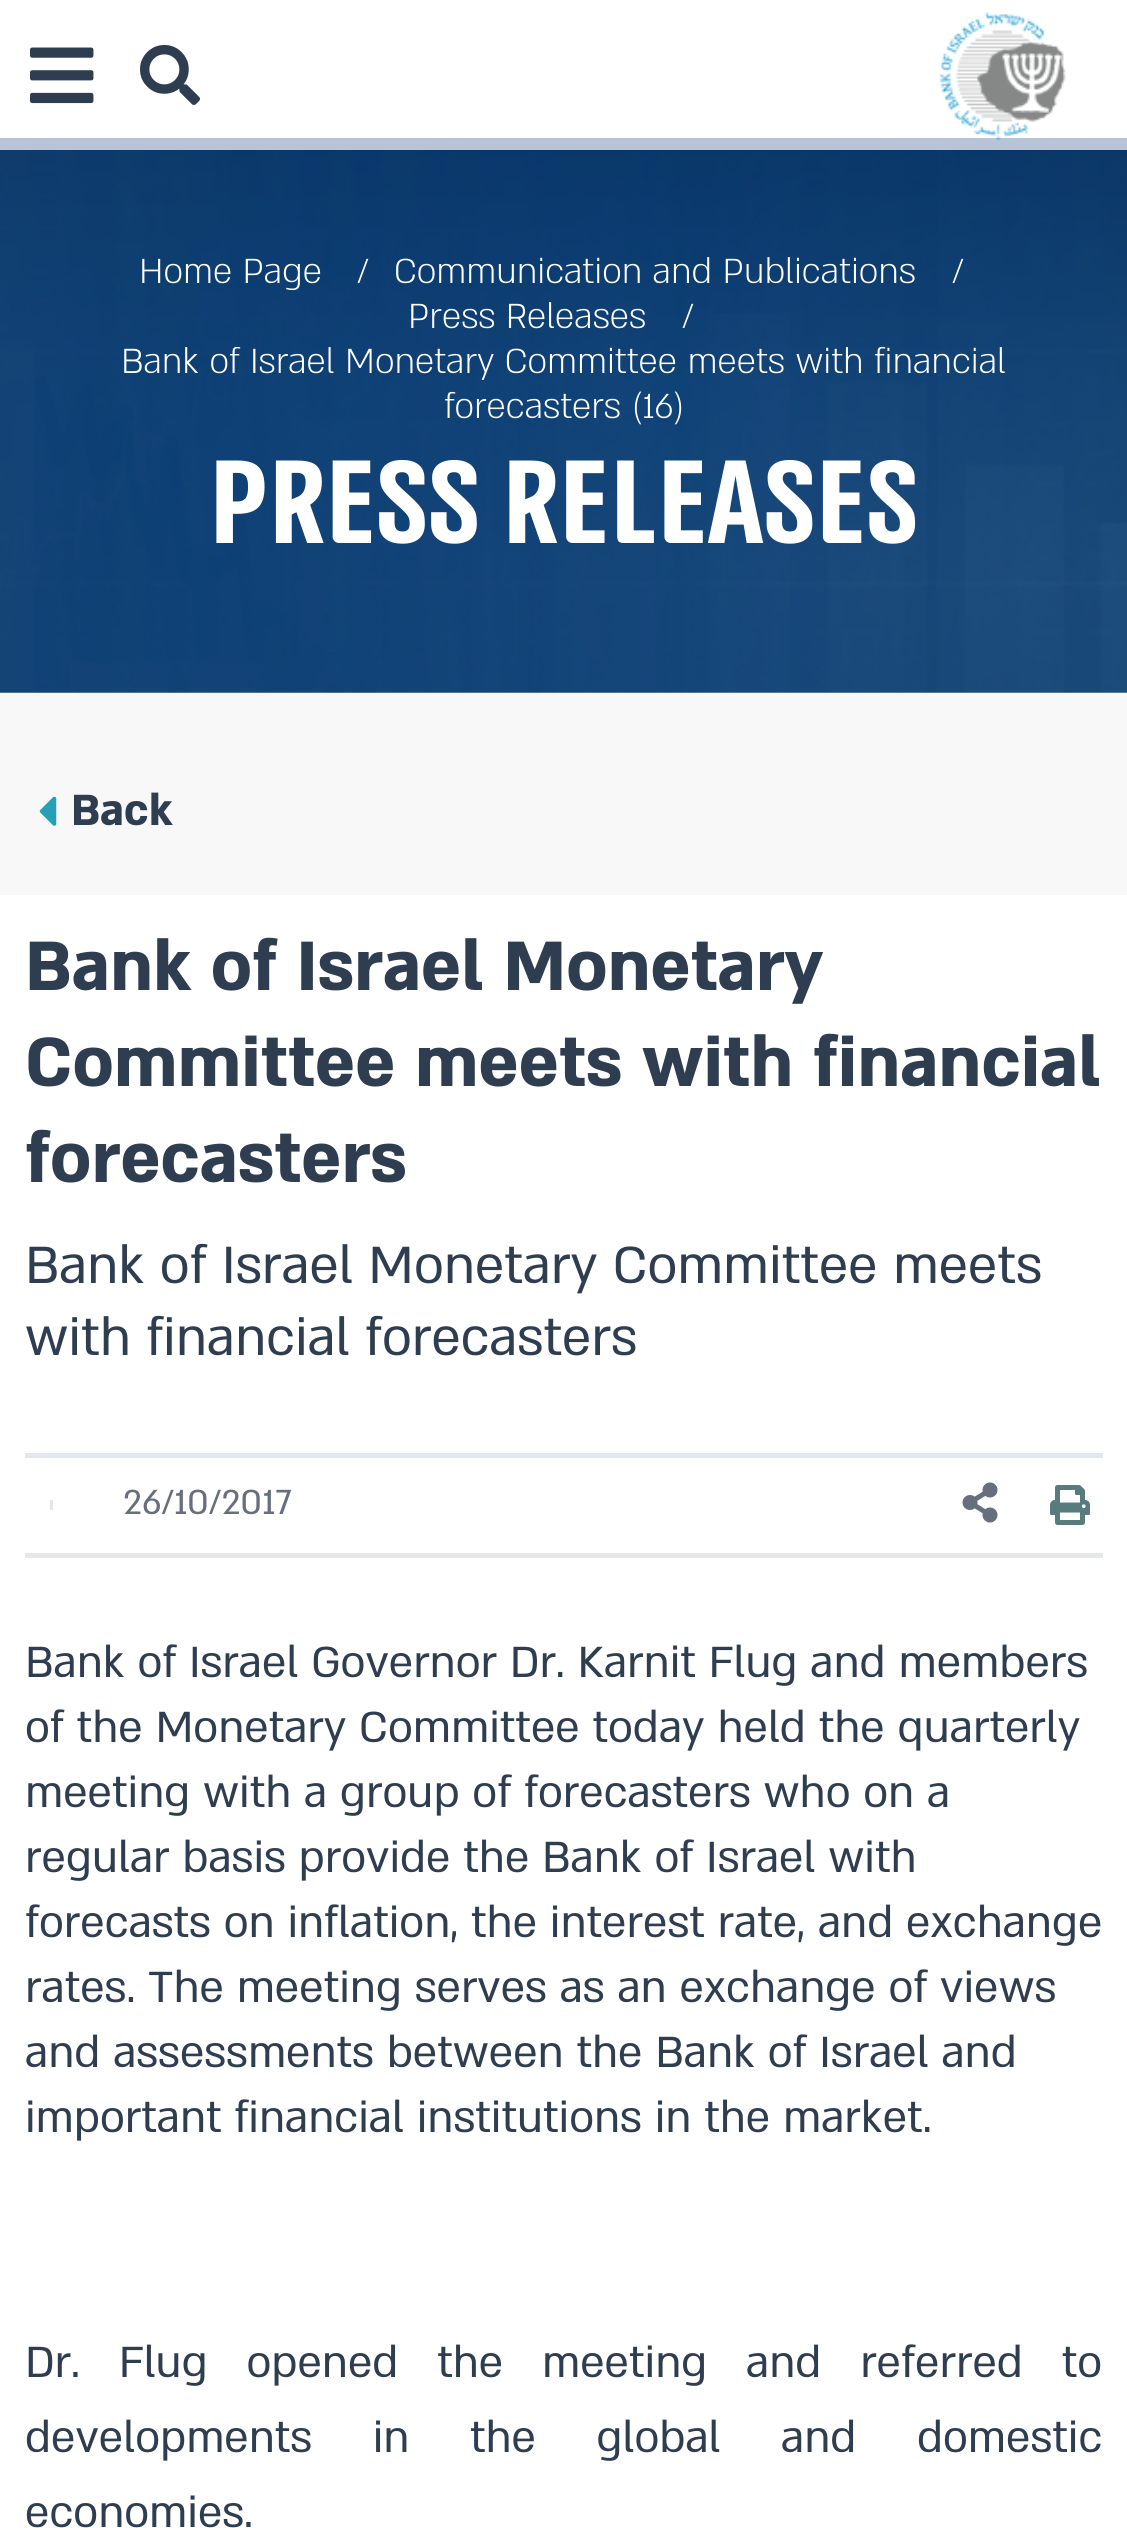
#include <cairo.h>
#include <math.h>
#include <stddef.h>


static void set_color(cairo_t *cr, unsigned color) {
    cairo_set_source_rgb(cr, (color >> 16) / 255.0, (color >> 8 & 255) / 255.0, (color & 255) / 255.0);
}

static void draw_text(cairo_t *cr, double x, double y, const char *s, const char *family, double size, int italic, int bold, unsigned color) {
    cairo_select_font_face(cr, family, italic ? CAIRO_FONT_SLANT_ITALIC : CAIRO_FONT_SLANT_NORMAL,
        bold ? CAIRO_FONT_WEIGHT_BOLD : CAIRO_FONT_WEIGHT_NORMAL);
    cairo_set_font_size(cr, size);
    set_color(cr, color);
    cairo_move_to(cr, x, y);
    cairo_show_text(cr, s);
}

static void draw_spaced(cairo_t *cr, double x, double y, const char *s, double letter, double word) {
    cairo_move_to(cr, x, y);
    while (*s) {
        char ch[5] = {0};
        int n = 0;
        do ch[n++] = *s++; while ((*s & 0xC0) == 0x80);
        cairo_show_text(cr, ch);
        cairo_rel_move_to(cr, letter + word * (*ch == ' '), 0);
    }
}

static void fill_rect(cairo_t *cr, double x, double y, double w, double h, unsigned color) {
    set_color(cr, color);
    cairo_rectangle(cr, x, y, w, h);
    cairo_fill(cr);
}

static void draw_image(cairo_t *cr, const char *path, double x, double y, double w, double h) {
    cairo_surface_t *image = cairo_image_surface_create_from_png(path);
    cairo_save(cr);
    cairo_set_source_surface(cr, image, x, y);
    cairo_rectangle(cr, x, y, w, h);
    cairo_fill(cr);
    cairo_restore(cr);
    cairo_surface_destroy(image);
}

int main(void) {
    cairo_surface_t *surface = cairo_image_surface_create(CAIRO_FORMAT_RGB24, 1127, 2528);
    cairo_t *cr = cairo_create(surface);
    cairo_font_options_t *options = cairo_font_options_create();
    cairo_font_options_set_hint_metrics(options, CAIRO_HINT_METRICS_OFF);
    cairo_font_options_set_hint_style(options, CAIRO_HINT_STYLE_NONE);
    cairo_set_font_options(cr, options);
    cairo_set_miter_limit(cr, 4);
    set_color(cr, 0xF8F8F8);
    cairo_paint(cr);
    fill_rect(cr, 0, 0, 1127, 138, 0xFFFFFF);
    fill_rect(cr, 0, 138, 1127, 12, 0xB8C4D5);
    draw_image(cr, "assets/img1.png", 30, 47, 64, 57);
    draw_image(cr, "assets/img2.png", 140, 45, 60, 60);
    draw_image(cr, "assets/img3.png", 939, 12, 127, 130);
    draw_image(cr, "assets/img4.png", 0, 692, 1127, 1);
    draw_image(cr, "assets/img5.png", 0, 150, 1127, 543);
    draw_text(cr, 139, 283, "Home Page", "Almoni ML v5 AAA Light", 40, 0, 0, 0xFFFFFF);
    draw_text(cr, 357, 283, "/", "Almoni ML v5 AAA Light", 40, 0, 0, 0xFFFFFF);
    draw_text(cr, 394, 283, "Communication and Publications", "Almoni ML v5 AAA Light", 40, 0, 0, 0xFFFFFF);
    draw_text(cr, 952, 283, "/", "Almoni ML v5 AAA Light", 40, 0, 0, 0xFFFFFF);
    draw_text(cr, 408, 328, "Press Releases", "Almoni ML v5 AAA Light", 40, 0, 0, 0xFFFFFF);
    draw_text(cr, 682, 328, "/", "Almoni ML v5 AAA Light", 40, 0, 0, 0xFFFFFF);
    draw_text(cr, 121, 373, "Bank of Israel Monetary Committee meets with financial", "Almoni ML v5 AAA Light", 40, 0, 0, 0xFFFFFF);
    draw_text(cr, 444, 418, "forecasters (16)", "Almoni ML v5 AAA Light", 40, 0, 0, 0xFFFFFF);
    draw_text(cr, 209, 543, "Press Releases", "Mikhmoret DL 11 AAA", 137.5, 0, 1, 0xFFFFFF);
    draw_image(cr, "assets/img6.png", 39, 796, 18, 30);
    draw_text(cr, 71, 825, "Back", "Almoni ML v5 AAA", 50, 0, 1, 0x2E3D50);
    fill_rect(cr, 0, 895, 1127, 1633, 0xFFFFFF);
    draw_text(cr, 25, 990, "Bank of Israel Monetary", "Almoni ML v5 AAA", 80, 0, 1, 0x2E3D50);
    draw_text(cr, 25, 1086, "Committee meets with financial", "Almoni ML v5 AAA", 80, 0, 1, 0x2E3D50);
    draw_text(cr, 25, 1182, "forecasters", "Almoni ML v5 AAA", 80, 0, 1, 0x2E3D50);
    draw_text(cr, 25, 1283, "Bank of Israel Monetary Committee meets", "Almoni ML v5 AAA", 60, 0, 0, 0x2E3D50);
    draw_text(cr, 25, 1355, "with financial forecasters", "Almoni ML v5 AAA", 60, 0, 0, 0x2E3D50);
    fill_rect(cr, 25, 1453, 1078, 5, 0xE3E7EE);
    fill_rect(cr, 25, 1553, 1078, 5, 0xE3E7EE);
    fill_rect(cr, 50, 1500, 3, 10, 0xE3E7EE);
    draw_text(cr, 123, 1514, "26/10/2017", "Almoni ML v5 AAA", 40, 0, 0, 0x676F7E);
    draw_image(cr, "assets/img7.png", 962, 1482, 36, 41);
    draw_image(cr, "assets/img8.png", 1050, 1485, 40, 40);
    draw_text(cr, 25, 1677, "Bank of Israel Governor Dr. Karnit Flug and members", "Almoni ML v5 AAA", 50, 0, 0, 0x2E3D50);
    draw_text(cr, 25, 1742, "of the Monetary Committee today held the quarterly", "Almoni ML v5 AAA", 50, 0, 0, 0x2E3D50);
    draw_text(cr, 25, 1807, "meeting with a group of forecasters who on a", "Almoni ML v5 AAA", 50, 0, 0, 0x2E3D50);
    draw_text(cr, 25, 1872, "regular basis provide the Bank of Israel with", "Almoni ML v5 AAA", 50, 0, 0, 0x2E3D50);
    draw_text(cr, 25, 1937, "forecasts on inflation, the interest rate, and exchange", "Almoni ML v5 AAA", 50, 0, 0, 0x2E3D50);
    draw_text(cr, 25, 2002, "rates. The meeting serves as an exchange of views", "Almoni ML v5 AAA", 50, 0, 0, 0x2E3D50);
    draw_text(cr, 25, 2067, "and assessments between the Bank of Israel and", "Almoni ML v5 AAA", 50, 0, 0, 0x2E3D50);
    draw_text(cr, 25, 2132, "important financial institutions in the market.", "Almoni ML v5 AAA", 50, 0, 0, 0x2E3D50);
    draw_spaced(cr, 25, 2377, "Dr. Flug opened the meeting and referred to", 0, 26);
    draw_spaced(cr, 25, 2452, "developments in the global and domestic", 0, 47.75);
    draw_text(cr, 25, 2527, "economies.", "Almoni ML v5 AAA", 50, 0, 0, 0x2E3D50);
    cairo_surface_write_to_png(surface, "output.png");
    cairo_font_options_destroy(options);
    cairo_destroy(cr);
    cairo_surface_destroy(surface);
    return 0;
}
